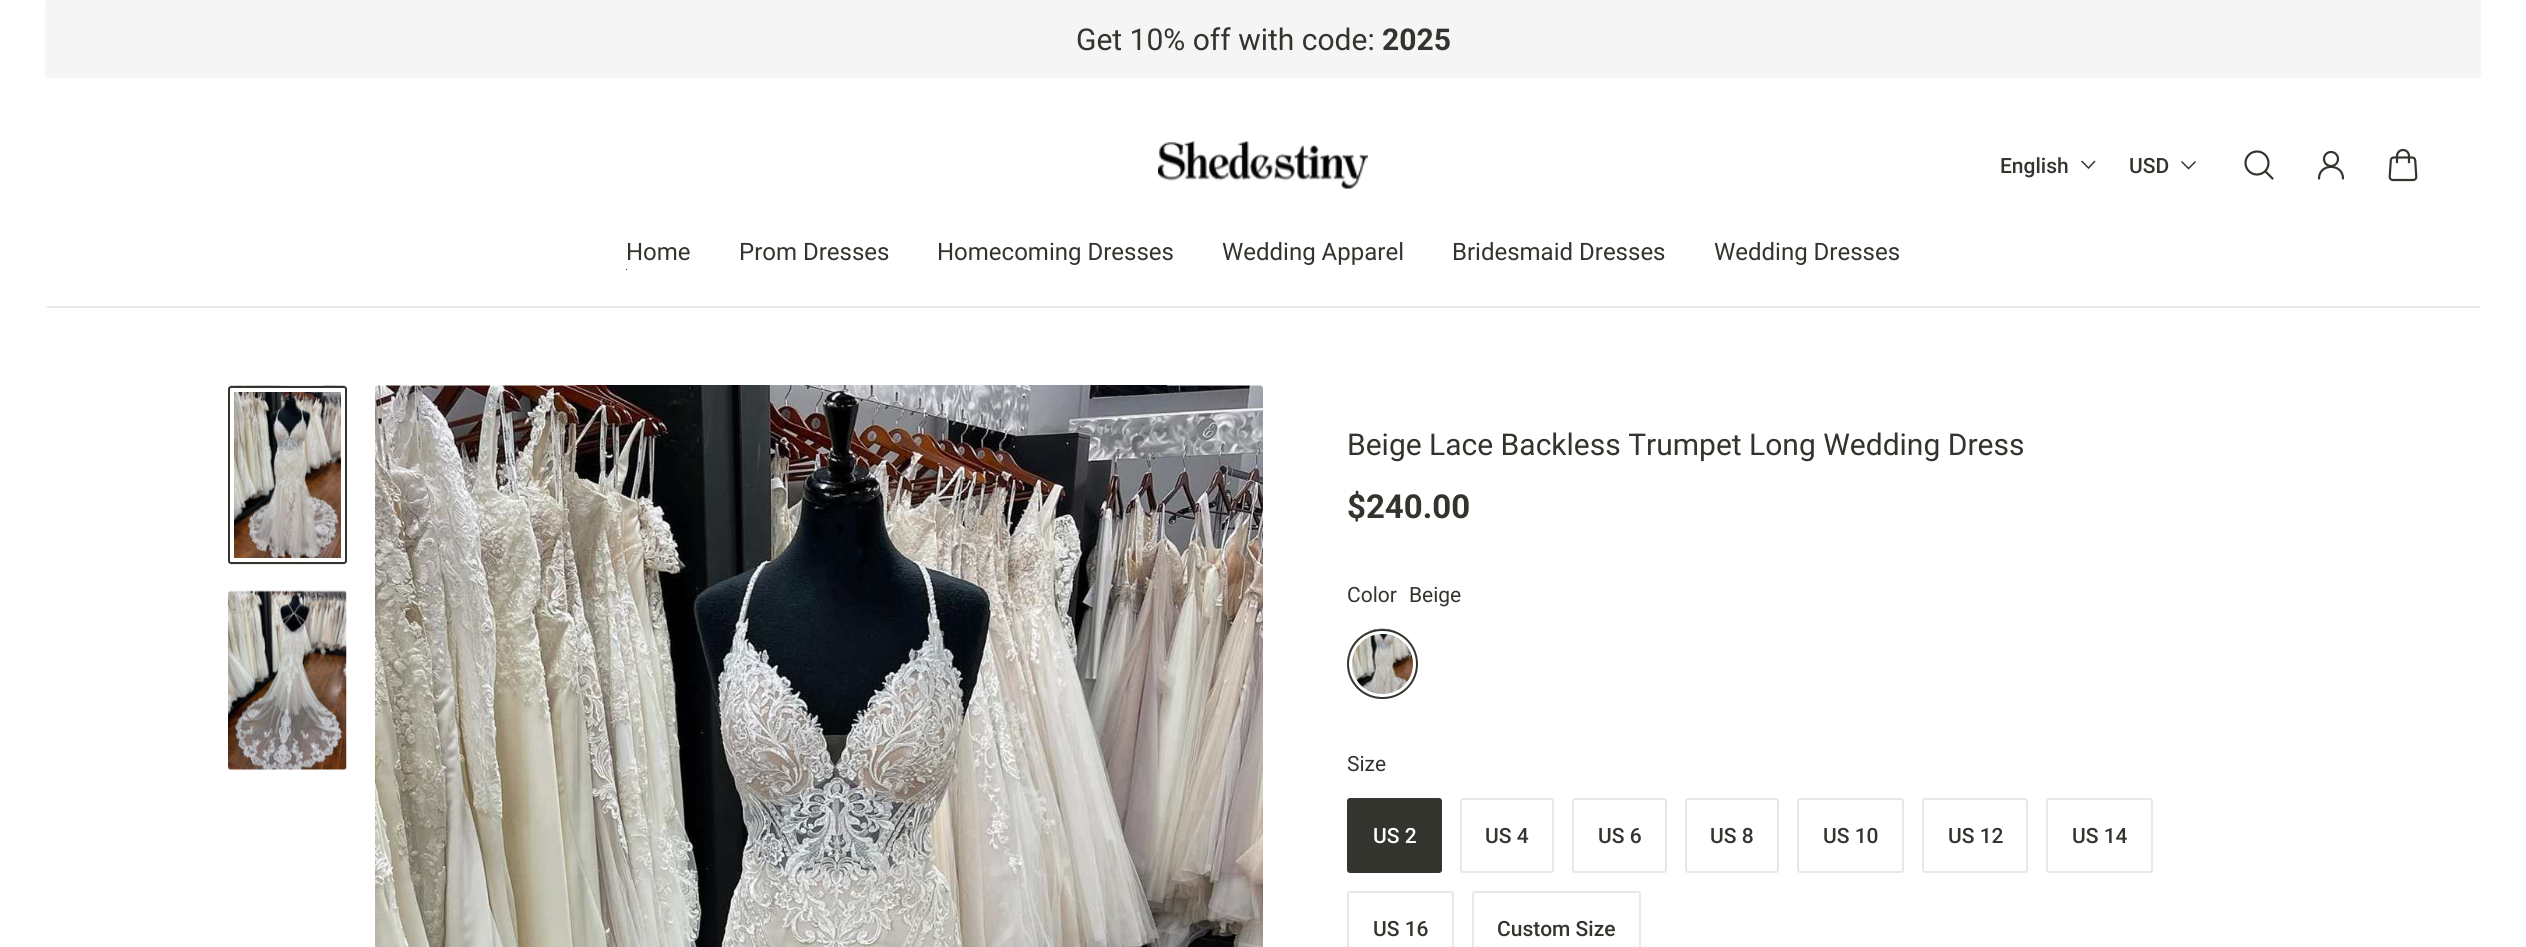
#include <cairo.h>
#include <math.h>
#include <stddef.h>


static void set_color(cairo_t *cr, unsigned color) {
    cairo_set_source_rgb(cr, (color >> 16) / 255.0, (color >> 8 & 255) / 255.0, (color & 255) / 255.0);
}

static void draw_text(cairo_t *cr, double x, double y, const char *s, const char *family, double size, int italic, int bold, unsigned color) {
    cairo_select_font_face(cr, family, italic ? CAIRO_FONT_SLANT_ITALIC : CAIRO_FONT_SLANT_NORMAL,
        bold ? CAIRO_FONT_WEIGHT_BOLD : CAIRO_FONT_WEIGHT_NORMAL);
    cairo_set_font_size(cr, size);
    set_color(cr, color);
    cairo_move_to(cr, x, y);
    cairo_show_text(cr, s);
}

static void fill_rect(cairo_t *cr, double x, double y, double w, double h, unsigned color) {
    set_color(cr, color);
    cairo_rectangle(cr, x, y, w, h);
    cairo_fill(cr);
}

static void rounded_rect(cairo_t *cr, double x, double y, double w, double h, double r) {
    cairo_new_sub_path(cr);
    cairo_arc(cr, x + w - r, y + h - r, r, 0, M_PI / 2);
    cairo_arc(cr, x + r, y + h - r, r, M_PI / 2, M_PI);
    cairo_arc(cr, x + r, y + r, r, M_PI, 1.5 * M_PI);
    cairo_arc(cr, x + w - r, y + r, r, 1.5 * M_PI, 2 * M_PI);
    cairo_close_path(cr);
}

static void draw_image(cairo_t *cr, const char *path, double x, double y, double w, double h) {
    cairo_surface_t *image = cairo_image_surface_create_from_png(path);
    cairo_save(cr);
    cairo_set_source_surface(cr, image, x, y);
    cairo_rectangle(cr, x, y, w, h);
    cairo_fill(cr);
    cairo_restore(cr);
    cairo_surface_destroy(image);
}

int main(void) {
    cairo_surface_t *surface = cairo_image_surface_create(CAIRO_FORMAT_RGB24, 2526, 947);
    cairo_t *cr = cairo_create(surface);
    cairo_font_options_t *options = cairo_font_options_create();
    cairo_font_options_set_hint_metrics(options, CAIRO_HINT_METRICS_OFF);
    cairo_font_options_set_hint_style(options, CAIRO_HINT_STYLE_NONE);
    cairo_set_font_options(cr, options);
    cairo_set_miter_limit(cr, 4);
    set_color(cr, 0xFFFFFF);
    cairo_paint(cr);
    set_color(cr, 0xF5F5F5);
    rounded_rect(cr, 45, 0, 2436, 78, 3);
    cairo_fill(cr);
    draw_text(cr, 1076, 50, "Get 10% off with code:", "Roboto", 30, 0, 0, 0x34342F);
    draw_text(cr, 1382, 50, "2025", "Roboto", 30, 0, 1, 0x34342F);
    draw_image(cr, "assets/img1.png", 1158, 141, 210, 48);
    draw_text(cr, 2000, 173, "English", "Roboto Medium", 21, 0, 0, 0x34342F);
    cairo_new_path(cr);
    cairo_move_to(cr, 2095, 161);
    cairo_line_to(cr, 2088.5, 168);
    cairo_line_to(cr, 2081.5, 161);
    cairo_set_line_width(cr, 1.5);
    cairo_stroke(cr);
    draw_text(cr, 2129, 173, "USD", "Roboto Medium", 21, 0, 0, 0x34342F);
    cairo_new_path(cr);
    cairo_move_to(cr, 2195.5, 161.5);
    cairo_line_to(cr, 2188.5, 168.5);
    cairo_line_to(cr, 2181.5, 161.5);
    cairo_stroke(cr);
    cairo_arc(cr, 2257, 163, 11.5, 0, 2 * M_PI);
    cairo_set_line_width(cr, 2.2);
    cairo_stroke(cr);
    cairo_new_path(cr);
    cairo_move_to(cr, 2265.5, 171.5);
    cairo_line_to(cr, 2272.5, 178.5);
    cairo_set_line_cap(cr, CAIRO_LINE_CAP_ROUND);
    cairo_set_line_join(cr, CAIRO_LINE_JOIN_ROUND);
    cairo_stroke(cr);
    cairo_arc(cr, 2331, 159, 7, 0, 2 * M_PI);
    cairo_set_line_cap(cr, CAIRO_LINE_CAP_BUTT);
    cairo_set_line_join(cr, CAIRO_LINE_JOIN_MITER);
    cairo_stroke(cr);
    cairo_new_path(cr);
    cairo_move_to(cr, 2343, 178.5);
    cairo_curve_to(cr, 2343, 163, 2319, 163, 2319, 178.5);
    cairo_set_line_cap(cr, CAIRO_LINE_CAP_ROUND);
    cairo_set_line_join(cr, CAIRO_LINE_JOIN_ROUND);
    cairo_stroke(cr);
    draw_image(cr, "assets/img2.png", 2388, 148, 30, 34);
    draw_text(cr, 626, 260, "Home", "Roboto", 24, 0, 0, 0x34342F);
    fill_rect(cr, 626, 269, 1, 1, 0x34342F);
    draw_text(cr, 739, 260, "Prom Dresses", "Roboto", 24, 0, 0, 0x34342F);
    draw_text(cr, 937, 260, "Homecoming Dresses", "Roboto", 24, 0, 0, 0x34342F);
    draw_text(cr, 1222, 260, "Wedding Apparel", "Roboto", 24, 0, 0, 0x34342F);
    draw_text(cr, 1452, 260, "Bridesmaid Dresses", "Roboto", 24, 0, 0, 0x34342F);
    draw_text(cr, 1714, 260, "Wedding Dresses", "Roboto", 24, 0, 0, 0x34342F);
    fill_rect(cr, 47, 306, 2433, 2, 0xE7E7E7);
    draw_image(cr, "assets/img3.png", 228, 385, 119, 180);
    cairo_rectangle(cr, 231, 389, 113, 172);
    set_color(cr, 0xFFFFFF);
    cairo_set_line_width(cr, 6);
    cairo_set_line_cap(cr, CAIRO_LINE_CAP_BUTT);
    cairo_set_line_join(cr, CAIRO_LINE_JOIN_MITER);
    cairo_stroke(cr);
    rounded_rect(cr, 229, 387, 117, 176, 2);
    set_color(cr, 0x34342F);
    cairo_set_line_width(cr, 2);
    cairo_stroke(cr);
    draw_image(cr, "assets/img4.png", 228, 590, 119, 180);
    draw_image(cr, "assets/img5.png", 375, 385, 888, 562);
    draw_text(cr, 1347, 455, "Beige Lace Backless Trumpet Long Wedding Dress", "Roboto", 30, 0, 0, 0x34342F);
    draw_text(cr, 1347, 518, "$240.00", "Roboto", 33, 0, 1, 0x34342F);
    draw_text(cr, 1347, 602, "Color", "Roboto", 21, 0, 0, 0x34342F);
    draw_text(cr, 1409, 602, "Beige", "Roboto", 21, 0, 0, 0x34342F);
    draw_image(cr, "assets/img6.png", 1347, 628, 71, 71);
    rounded_rect(cr, 1349.5, 631.5, 66, 65, 32.5);
    set_color(cr, 0xFFFFFF);
    cairo_set_line_width(cr, 5);
    cairo_stroke(cr);
    rounded_rect(cr, 1348, 630, 69, 68, 34);
    set_color(cr, 0x34342F);
    cairo_set_line_width(cr, 2);
    cairo_stroke(cr);
    draw_text(cr, 1347, 771, "Size", "Roboto", 21, 0, 0, 0x34342F);
    rounded_rect(cr, 1348, 799, 93, 73, 2);
    cairo_fill_preserve(cr);
    cairo_stroke(cr);
    draw_text(cr, 1373, 843, "US 2", "Roboto Medium", 21, 0, 0, 0xFFFFFF);
    rounded_rect(cr, 1461, 799, 92, 73, 2);
    set_color(cr, 0xE7E7E7);
    cairo_stroke(cr);
    draw_text(cr, 1485, 843, "US 4", "Roboto Medium", 21, 0, 0, 0x34342F);
    rounded_rect(cr, 1573, 799, 93, 73, 2);
    set_color(cr, 0xE7E7E7);
    cairo_stroke(cr);
    draw_text(cr, 1598, 843, "US 6", "Roboto Medium", 21, 0, 0, 0x34342F);
    rounded_rect(cr, 1686, 799, 92, 73, 2);
    set_color(cr, 0xE7E7E7);
    cairo_stroke(cr);
    draw_text(cr, 1710, 843, "US 8", "Roboto Medium", 21, 0, 0, 0x34342F);
    rounded_rect(cr, 1798, 799, 105, 73, 2);
    set_color(cr, 0xE7E7E7);
    cairo_stroke(cr);
    draw_text(cr, 1823, 843, "US 10", "Roboto Medium", 21, 0, 0, 0x34342F);
    rounded_rect(cr, 1923, 799, 104, 73, 2);
    set_color(cr, 0xE7E7E7);
    cairo_stroke(cr);
    draw_text(cr, 1948, 843, "US 12", "Roboto Medium", 21, 0, 0, 0x34342F);
    rounded_rect(cr, 2047, 799, 105, 73, 2);
    set_color(cr, 0xE7E7E7);
    cairo_stroke(cr);
    draw_text(cr, 2072, 843, "US 14", "Roboto Medium", 21, 0, 0, 0x34342F);
    rounded_rect(cr, 1348, 892, 105, 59, 2);
    set_color(cr, 0xE7E7E7);
    cairo_stroke(cr);
    draw_text(cr, 1373, 936, "US 16", "Roboto Medium", 21, 0, 0, 0x34342F);
    rounded_rect(cr, 1473, 892, 167, 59, 2);
    set_color(cr, 0xE7E7E7);
    cairo_stroke(cr);
    draw_text(cr, 1497, 936, "Custom Size", "Roboto Medium", 21, 0, 0, 0x34342F);
    cairo_surface_write_to_png(surface, "output.png");
    cairo_font_options_destroy(options);
    cairo_destroy(cr);
    cairo_surface_destroy(surface);
    return 0;
}
